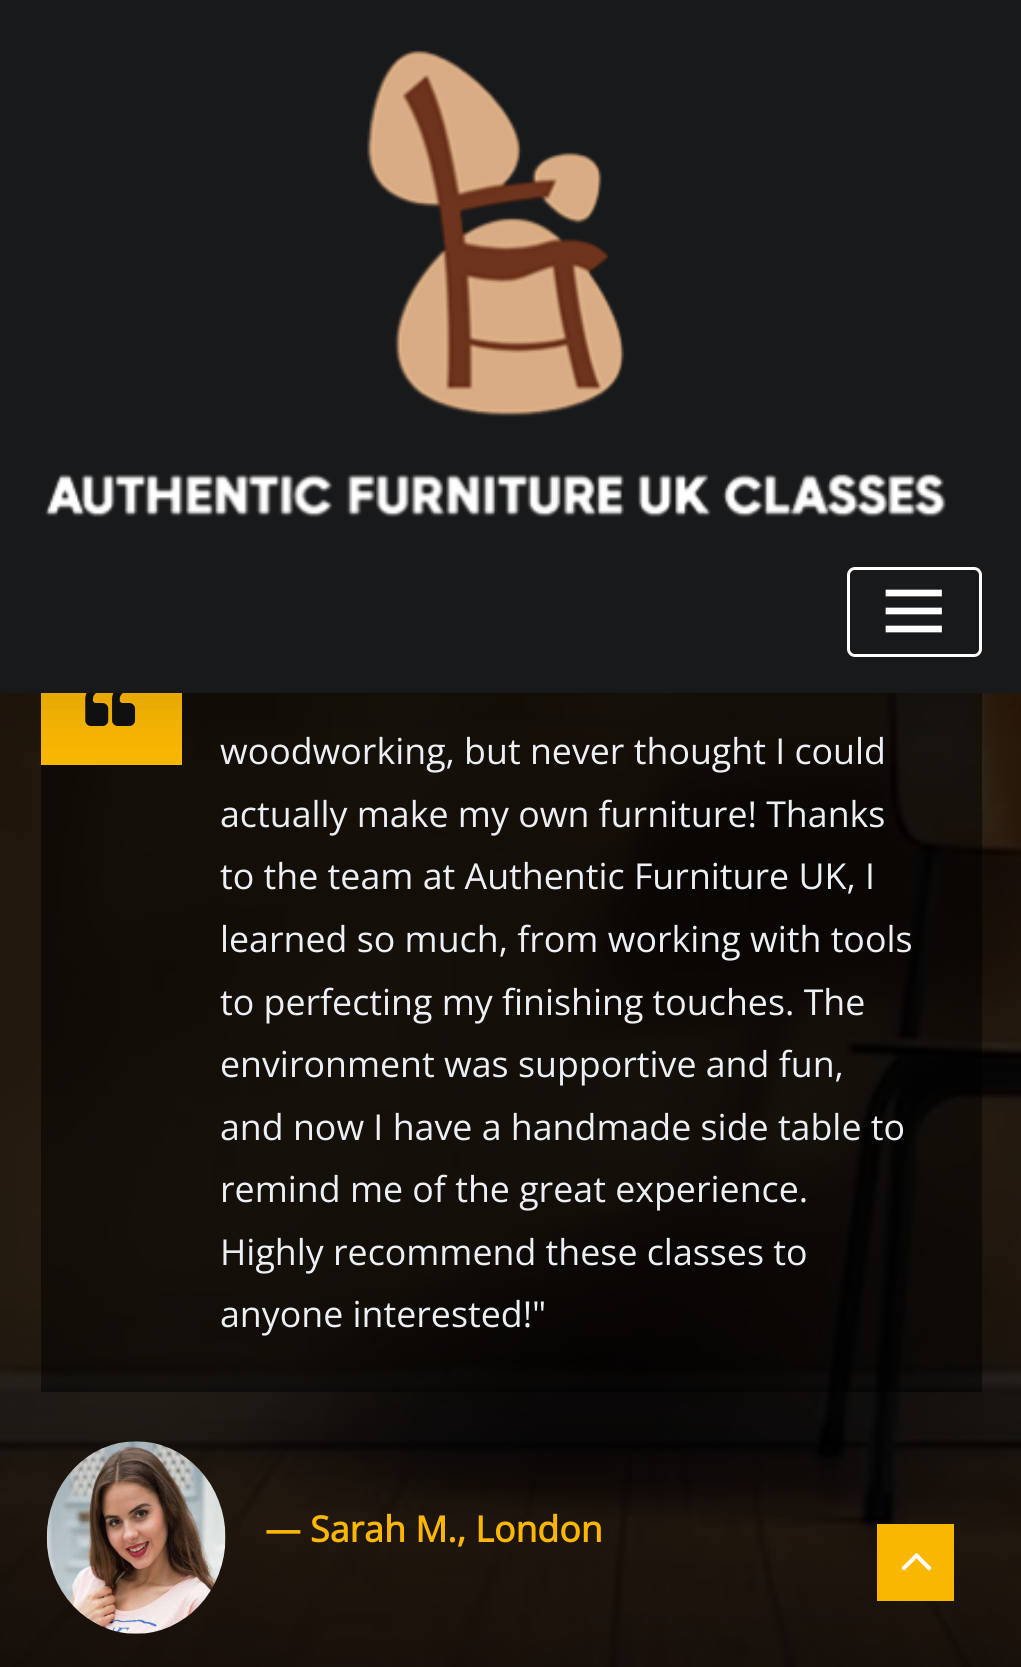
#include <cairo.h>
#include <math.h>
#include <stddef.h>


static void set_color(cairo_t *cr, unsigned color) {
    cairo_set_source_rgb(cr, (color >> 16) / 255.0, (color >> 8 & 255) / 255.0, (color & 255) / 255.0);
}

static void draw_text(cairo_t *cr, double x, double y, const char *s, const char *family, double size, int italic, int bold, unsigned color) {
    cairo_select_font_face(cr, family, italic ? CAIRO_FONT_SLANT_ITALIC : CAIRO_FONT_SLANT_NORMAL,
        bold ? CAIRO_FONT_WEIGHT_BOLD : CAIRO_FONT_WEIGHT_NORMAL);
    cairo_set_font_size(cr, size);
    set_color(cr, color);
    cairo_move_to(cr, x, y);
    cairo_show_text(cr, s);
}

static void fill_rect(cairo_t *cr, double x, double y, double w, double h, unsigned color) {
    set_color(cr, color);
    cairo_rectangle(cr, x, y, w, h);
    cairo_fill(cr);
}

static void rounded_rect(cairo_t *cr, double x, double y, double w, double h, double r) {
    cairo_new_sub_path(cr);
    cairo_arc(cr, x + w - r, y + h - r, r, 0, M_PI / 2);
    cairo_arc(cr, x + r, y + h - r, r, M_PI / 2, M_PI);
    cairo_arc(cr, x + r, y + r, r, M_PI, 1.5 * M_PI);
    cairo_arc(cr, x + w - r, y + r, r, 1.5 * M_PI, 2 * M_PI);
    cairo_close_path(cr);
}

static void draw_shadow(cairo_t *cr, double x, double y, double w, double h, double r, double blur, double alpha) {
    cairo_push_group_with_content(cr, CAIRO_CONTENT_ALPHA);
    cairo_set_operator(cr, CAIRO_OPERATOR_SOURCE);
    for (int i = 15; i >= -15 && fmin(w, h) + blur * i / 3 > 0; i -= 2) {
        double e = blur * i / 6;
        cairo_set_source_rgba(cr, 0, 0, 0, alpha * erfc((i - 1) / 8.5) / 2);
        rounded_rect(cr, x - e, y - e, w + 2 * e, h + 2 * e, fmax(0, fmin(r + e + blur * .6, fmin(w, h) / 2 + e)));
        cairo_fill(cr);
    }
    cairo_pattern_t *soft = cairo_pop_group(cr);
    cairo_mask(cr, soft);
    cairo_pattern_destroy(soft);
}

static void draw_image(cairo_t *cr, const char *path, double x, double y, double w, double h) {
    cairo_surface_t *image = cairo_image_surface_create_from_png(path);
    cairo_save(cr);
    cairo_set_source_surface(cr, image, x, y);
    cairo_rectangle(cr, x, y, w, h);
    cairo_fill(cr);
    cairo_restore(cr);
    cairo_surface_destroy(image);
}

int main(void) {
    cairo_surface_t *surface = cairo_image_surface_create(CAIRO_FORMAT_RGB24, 1021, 1667);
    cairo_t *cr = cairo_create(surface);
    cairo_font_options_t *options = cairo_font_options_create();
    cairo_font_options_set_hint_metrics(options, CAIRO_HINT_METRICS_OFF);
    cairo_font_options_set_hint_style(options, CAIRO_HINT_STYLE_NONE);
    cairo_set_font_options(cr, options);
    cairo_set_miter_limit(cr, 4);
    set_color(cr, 0xFFFFFF);
    cairo_paint(cr);
    draw_image(cr, "assets/img2.png", 0, 693, 1021, 974);
    cairo_set_source_rgba(cr, 0, 0, 0, 0.5);
    cairo_rectangle(cr, 41, 693, 941, 699);
    cairo_fill(cr);
    fill_rect(cr, 41, 693, 141, 72, 0xFAB702);
    draw_image(cr, "assets/img3.png", 85, 693, 51, 33);
    set_color(cr, 0x000000);
    draw_shadow(cr, 0, 22, 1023, 693, 0, 27.5, 0.1);
    fill_rect(cr, 0, 0, 1021, 693, 0x18191B);
    draw_image(cr, "assets/img1.png", 45, 50, 901, 468);
    rounded_rect(cr, 848.5, 568.5, 132, 87, 6.5);
    set_color(cr, 0xFFFFFF);
    cairo_set_line_width(cr, 3);
    cairo_stroke(cr);
    cairo_new_path(cr);
    cairo_move_to(cr, 889, 593);
    cairo_line_to(cr, 938.5, 593);
    cairo_move_to(cr, 889, 611);
    cairo_line_to(cr, 938.5, 611);
    cairo_move_to(cr, 889, 629);
    cairo_line_to(cr, 938.5, 629);
    cairo_set_line_width(cr, 6.7);
    cairo_set_line_cap(cr, CAIRO_LINE_CAP_SQUARE);
    cairo_stroke(cr);
    draw_text(cr, 220, 764, "woodworking, but never thought I could", "Open Sans", 35.75, 0, 0, 0xECEFF3);
    draw_text(cr, 220, 827, "actually make my own furniture! Thanks", "Open Sans", 35.75, 0, 0, 0xECEFF3);
    draw_text(cr, 220, 889, "to the team at Authentic Furniture UK, I", "Open Sans", 35.75, 0, 0, 0xECEFF3);
    draw_text(cr, 220, 952, "learned so much, from working with tools", "Open Sans", 35.75, 0, 0, 0xECEFF3);
    draw_text(cr, 220, 1015, "to perfecting my finishing touches. The", "Open Sans", 35.75, 0, 0, 0xECEFF3);
    draw_text(cr, 220, 1077, "environment was supportive and fun,", "Open Sans", 35.75, 0, 0, 0xECEFF3);
    draw_text(cr, 220, 1140, "and now I have a handmade side table to", "Open Sans", 35.75, 0, 0, 0xECEFF3);
    draw_text(cr, 220, 1202, "remind me of the great experience.", "Open Sans", 35.75, 0, 0, 0xECEFF3);
    draw_text(cr, 220, 1265, "Highly recommend these classes to", "Open Sans", 35.75, 0, 0, 0xECEFF3);
    draw_text(cr, 220, 1327, "anyone interested!\"", "Open Sans", 35.75, 0, 0, 0xECEFF3);
    draw_image(cr, "assets/img4.png", 46, 1441, 180, 193);
    draw_text(cr, 265, 1542, "— Sarah M., London", "Open Sans", 35.75, 0, 1, 0xFAB702);
    fill_rect(cr, 877, 1524, 77, 77, 0xFAB702);
    draw_image(cr, "assets/img5.png", 901, 1553, 31, 18);
    cairo_surface_write_to_png(surface, "output.png");
    cairo_font_options_destroy(options);
    cairo_destroy(cr);
    cairo_surface_destroy(surface);
    return 0;
}
